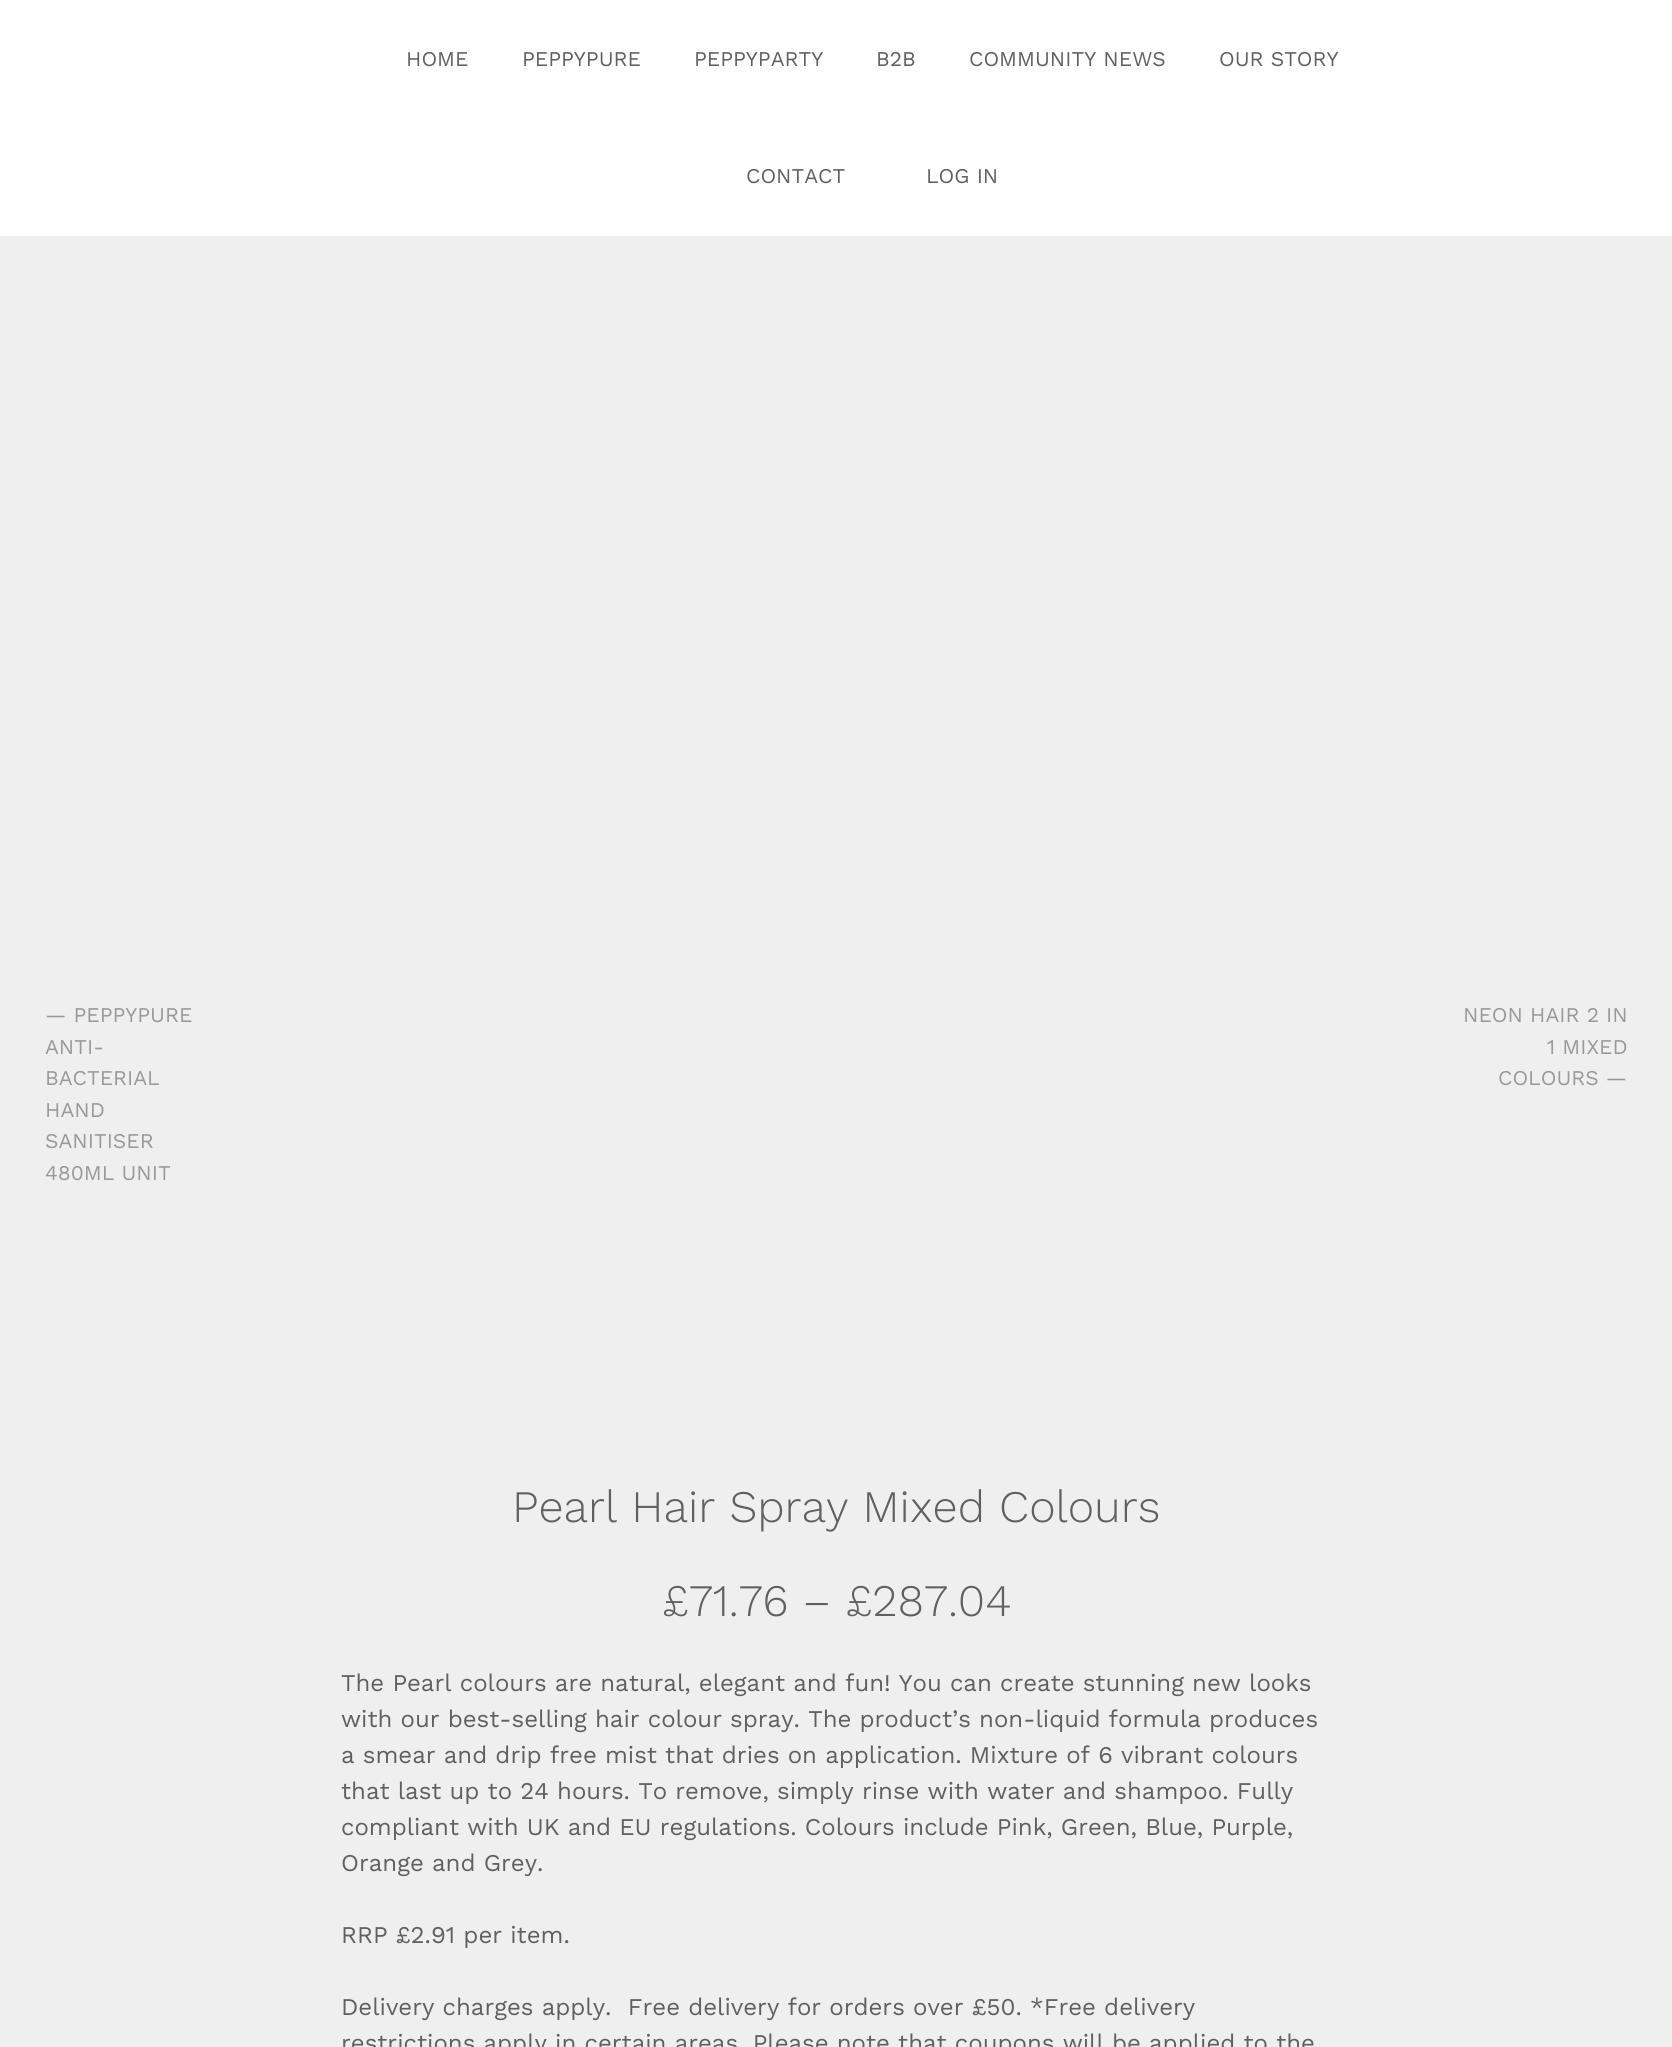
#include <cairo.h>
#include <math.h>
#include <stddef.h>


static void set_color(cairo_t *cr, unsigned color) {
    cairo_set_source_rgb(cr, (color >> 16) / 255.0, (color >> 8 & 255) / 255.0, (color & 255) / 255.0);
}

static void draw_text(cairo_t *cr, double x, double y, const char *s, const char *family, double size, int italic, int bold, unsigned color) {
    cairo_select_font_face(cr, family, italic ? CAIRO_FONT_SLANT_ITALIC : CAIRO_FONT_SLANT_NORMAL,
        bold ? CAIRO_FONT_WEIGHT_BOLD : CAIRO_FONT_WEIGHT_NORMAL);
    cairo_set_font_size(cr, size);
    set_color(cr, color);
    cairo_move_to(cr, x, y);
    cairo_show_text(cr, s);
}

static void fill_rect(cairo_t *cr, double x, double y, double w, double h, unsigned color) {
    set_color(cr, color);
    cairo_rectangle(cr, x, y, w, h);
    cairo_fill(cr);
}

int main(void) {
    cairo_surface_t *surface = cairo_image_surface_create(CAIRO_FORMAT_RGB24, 1672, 2047);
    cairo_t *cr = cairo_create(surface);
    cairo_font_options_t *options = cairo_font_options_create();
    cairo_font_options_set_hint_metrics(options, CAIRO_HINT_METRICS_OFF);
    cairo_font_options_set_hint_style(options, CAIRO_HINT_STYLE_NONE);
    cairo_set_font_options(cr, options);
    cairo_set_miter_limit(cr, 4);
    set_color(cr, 0xEFEFEF);
    cairo_paint(cr);
    fill_rect(cr, 0, 0, 1672, 236, 0xFFFFFF);
    draw_text(cr, 406, 66, "HOME", "Work Sans", 21, 0, 0, 0x606060);
    draw_text(cr, 522, 66, "PEPPYPURE", "Work Sans", 21, 0, 0, 0x606060);
    draw_text(cr, 694, 66, "PEPPYPARTY", "Work Sans", 21, 0, 0, 0x606060);
    draw_text(cr, 876, 66, "B2B", "Work Sans", 21, 0, 0, 0x606060);
    draw_text(cr, 969, 66, "COMMUNITY NEWS", "Work Sans", 21, 0, 0, 0x606060);
    draw_text(cr, 1219, 66, "OUR STORY", "Work Sans", 21, 0, 0, 0x606060);
    draw_text(cr, 746, 183, "CONTACT", "Work Sans", 21, 0, 0, 0x606060);
    draw_text(cr, 926, 183, "LOG IN", "Work Sans", 21, 0, 0, 0x606060);
    draw_text(cr, 45, 1022, "— PEPPYPURE", "Work Sans", 21, 0, 0, 0x999999);
    draw_text(cr, 45, 1054, "ANTI-", "Work Sans", 21, 0, 0, 0x999999);
    draw_text(cr, 45, 1085, "BACTERIAL", "Work Sans", 21, 0, 0, 0x999999);
    draw_text(cr, 45, 1117, "HAND", "Work Sans", 21, 0, 0, 0x999999);
    draw_text(cr, 45, 1148, "SANITISER", "Work Sans", 21, 0, 0, 0x999999);
    draw_text(cr, 45, 1180, "480ML UNIT", "Work Sans", 21, 0, 0, 0x999999);
    draw_text(cr, 1463, 1022, "NEON HAIR 2 IN", "Work Sans", 21, 0, 0, 0x999999);
    draw_text(cr, 1547, 1054, "1 MIXED", "Work Sans", 21, 0, 0, 0x999999);
    draw_text(cr, 1498, 1085, "COLOURS —", "Work Sans", 21, 0, 0, 0x999999);
    draw_text(cr, 512, 1522, "Pearl Hair Spray Mixed Colours", "Work Sans Light", 45, 0, 0, 0x606060);
    draw_text(cr, 662, 1616, "£71.76 – £287.04", "Work Sans Light", 45, 0, 0, 0x606060);
    draw_text(cr, 341, 1691, "The Pearl colours are natural, elegant and fun! You can create stunning new looks", "Work Sans", 24, 0, 0, 0x606060);
    draw_text(cr, 341, 1727, "with our best-selling hair colour spray. The product’s non-liquid formula produces", "Work Sans", 24, 0, 0, 0x606060);
    draw_text(cr, 341, 1763, "a smear and drip free mist that dries on application. Mixture of 6 vibrant colours", "Work Sans", 24, 0, 0, 0x606060);
    draw_text(cr, 341, 1799, "that last up to 24 hours. To remove, simply rinse with water and shampoo. Fully", "Work Sans", 24, 0, 0, 0x606060);
    draw_text(cr, 341, 1835, "compliant with UK and EU regulations. Colours include Pink, Green, Blue, Purple,", "Work Sans", 24, 0, 0, 0x606060);
    draw_text(cr, 341, 1871, "Orange and Grey.", "Work Sans", 24, 0, 0, 0x606060);
    draw_text(cr, 341, 1943, "RRP £2.91 per item.", "Work Sans", 24, 0, 0, 0x606060);
    draw_text(cr, 341, 2015, "Delivery charges apply.  Free delivery for orders over £50. *Free delivery", "Work Sans", 24, 0, 0, 0x606060);
    draw_text(cr, 341, 2051, "restrictions apply in certain areas. Please note that coupons will be applied to the", "Work Sans", 24, 0, 0, 0x606060);
    cairo_surface_write_to_png(surface, "output.png");
    cairo_font_options_destroy(options);
    cairo_destroy(cr);
    cairo_surface_destroy(surface);
    return 0;
}
